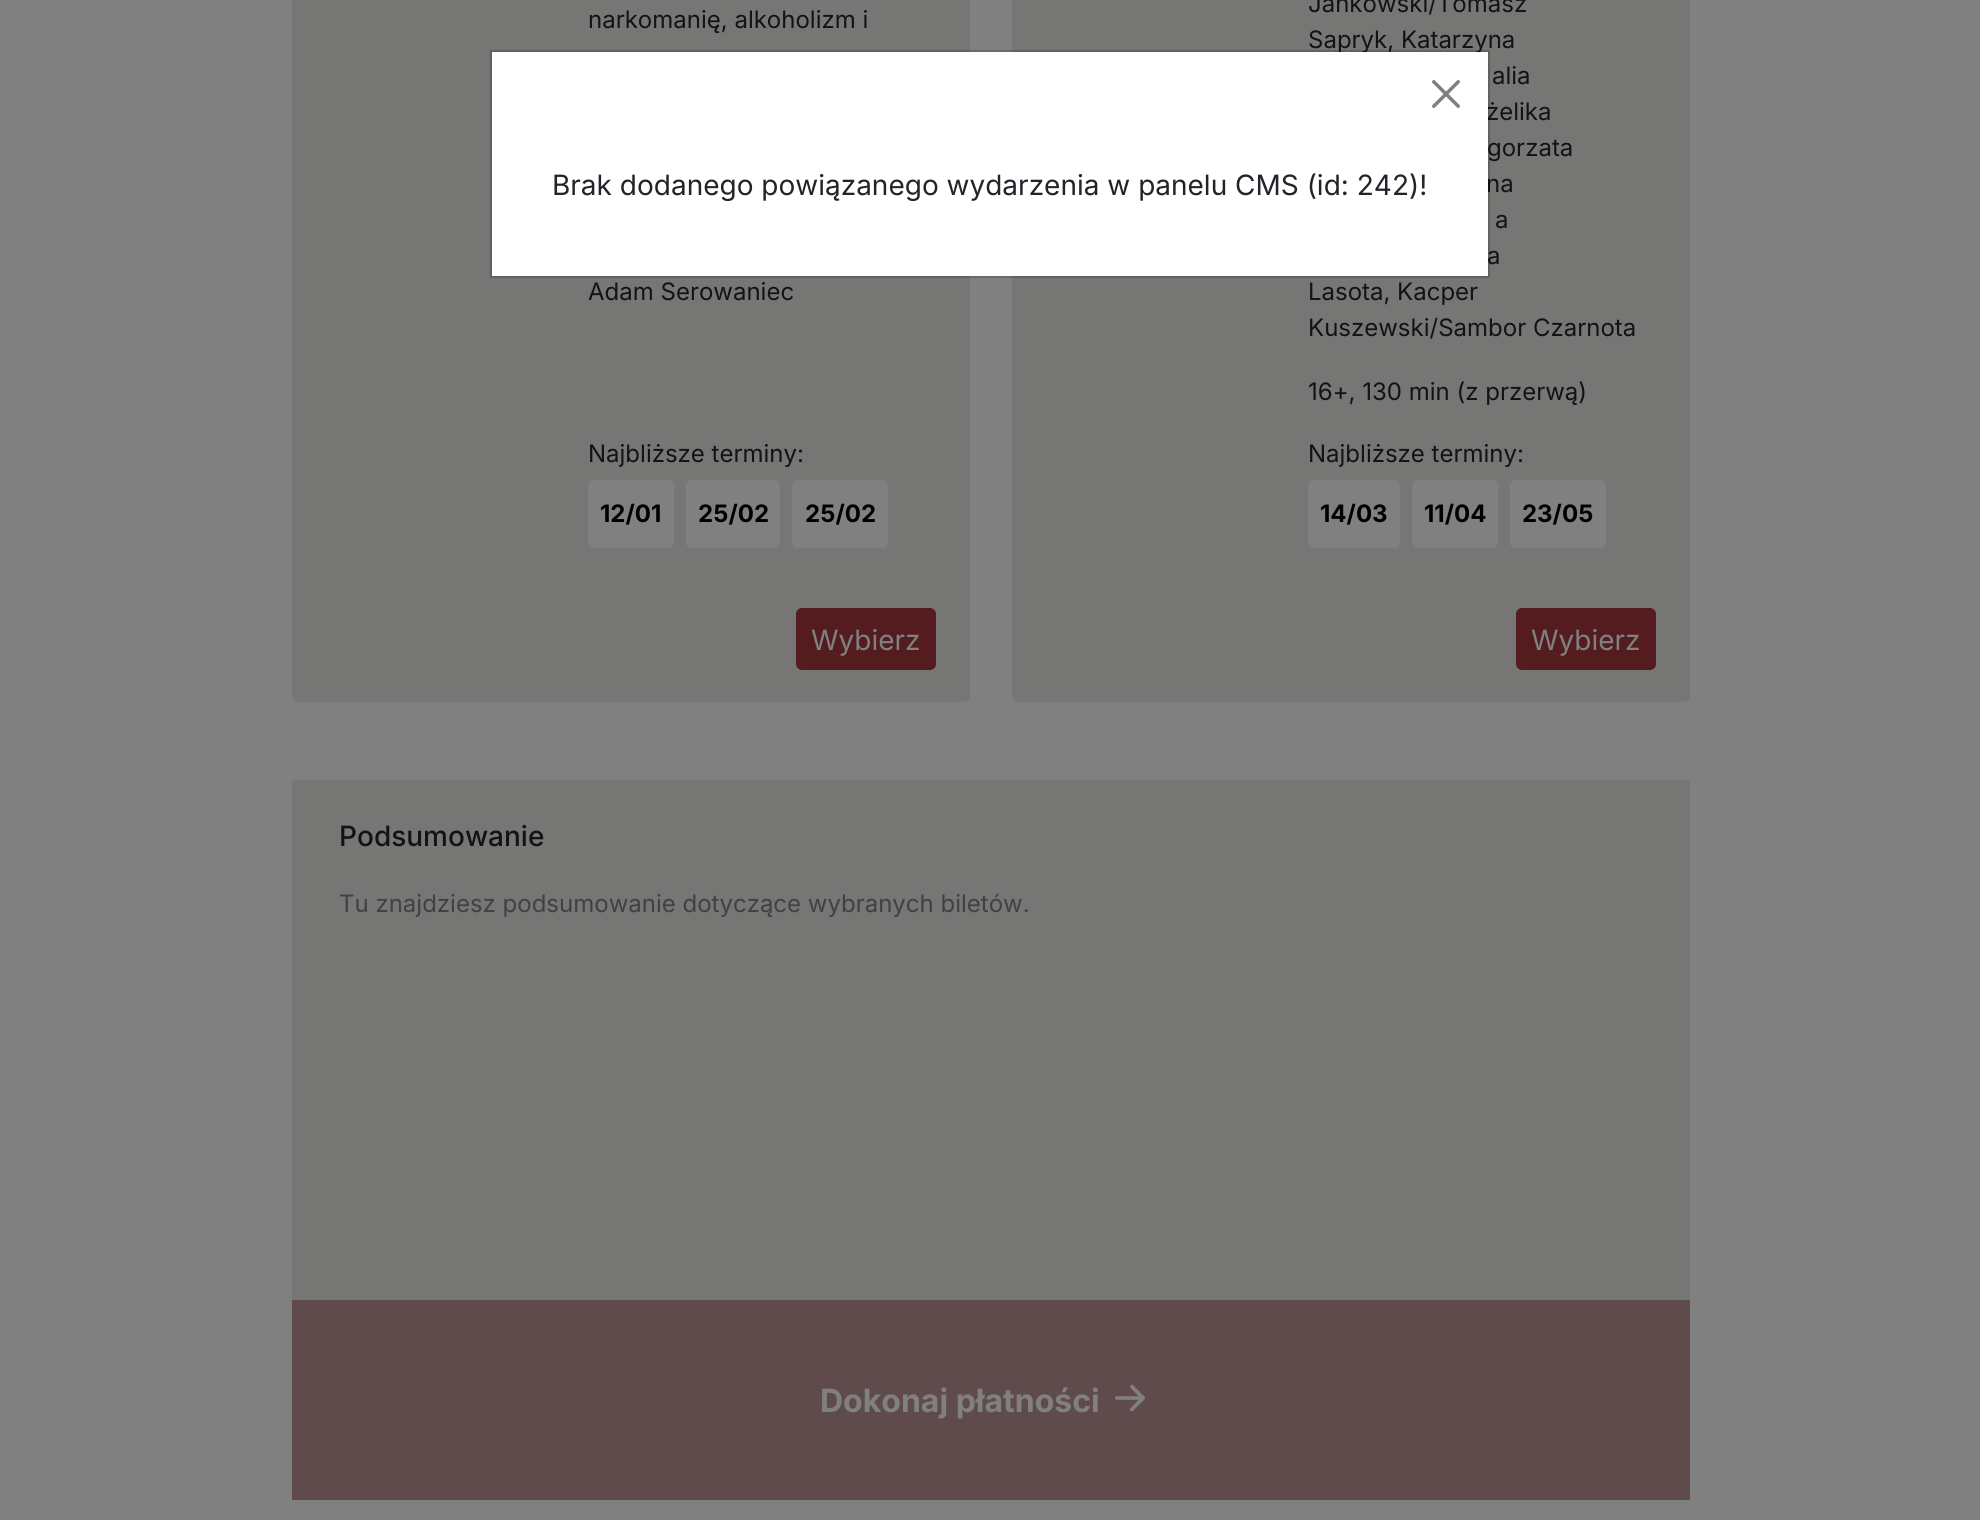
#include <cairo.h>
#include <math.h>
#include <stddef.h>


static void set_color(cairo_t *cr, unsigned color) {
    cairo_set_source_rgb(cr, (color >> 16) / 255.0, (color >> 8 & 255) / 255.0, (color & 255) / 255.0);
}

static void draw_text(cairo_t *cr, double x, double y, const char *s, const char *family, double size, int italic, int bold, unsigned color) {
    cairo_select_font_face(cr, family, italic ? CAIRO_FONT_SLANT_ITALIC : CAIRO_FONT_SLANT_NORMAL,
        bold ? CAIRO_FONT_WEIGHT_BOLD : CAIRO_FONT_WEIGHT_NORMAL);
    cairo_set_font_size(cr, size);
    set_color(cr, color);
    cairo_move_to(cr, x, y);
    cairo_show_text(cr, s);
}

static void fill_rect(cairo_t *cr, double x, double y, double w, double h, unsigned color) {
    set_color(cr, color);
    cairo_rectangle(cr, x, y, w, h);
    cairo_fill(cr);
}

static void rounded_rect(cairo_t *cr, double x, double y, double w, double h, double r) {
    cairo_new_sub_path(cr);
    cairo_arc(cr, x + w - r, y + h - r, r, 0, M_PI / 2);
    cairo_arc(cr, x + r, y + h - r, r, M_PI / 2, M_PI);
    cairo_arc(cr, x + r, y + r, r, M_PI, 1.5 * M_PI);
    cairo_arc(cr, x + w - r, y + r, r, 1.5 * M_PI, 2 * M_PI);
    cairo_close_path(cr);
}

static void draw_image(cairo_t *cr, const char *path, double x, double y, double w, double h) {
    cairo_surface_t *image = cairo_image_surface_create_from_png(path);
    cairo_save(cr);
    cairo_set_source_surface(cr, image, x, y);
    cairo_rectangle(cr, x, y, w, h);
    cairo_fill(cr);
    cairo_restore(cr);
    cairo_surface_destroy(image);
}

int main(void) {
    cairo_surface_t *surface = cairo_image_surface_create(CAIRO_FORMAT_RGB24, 1980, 1520);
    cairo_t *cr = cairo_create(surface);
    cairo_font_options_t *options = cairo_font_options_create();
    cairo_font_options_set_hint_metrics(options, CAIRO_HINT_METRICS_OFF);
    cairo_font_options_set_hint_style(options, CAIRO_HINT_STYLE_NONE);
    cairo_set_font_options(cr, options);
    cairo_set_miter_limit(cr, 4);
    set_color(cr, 0x808080);
    cairo_paint(cr);
    set_color(cr, 0x767675);
    rounded_rect(cr, 292, -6, 678, 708, 6);
    cairo_fill(cr);
    draw_text(cr, 588, 28, "narkomanię, alkoholizm i", "Inter", 24, 0, 0, 0x111315);
    draw_text(cr, 588, 300, "Adam Serowaniec", "Inter", 24, 0, 0, 0x111315);
    draw_text(cr, 588, 462, "Najbliższe terminy:", "Inter", 24, 0, 0, 0x111315);
    set_color(cr, 0x808080);
    rounded_rect(cr, 589, 481, 84, 66, 5);
    cairo_fill_preserve(cr);
    cairo_stroke(cr);
    draw_text(cr, 600, 522, "12/01", "Inter", 24, 0, 1, 0x000000);
    set_color(cr, 0x808080);
    rounded_rect(cr, 687, 481, 92, 66, 5);
    cairo_fill_preserve(cr);
    cairo_stroke(cr);
    draw_text(cr, 698, 522, "25/02", "Inter", 24, 0, 1, 0x000000);
    set_color(cr, 0x808080);
    rounded_rect(cr, 793, 481, 94, 66, 5);
    cairo_fill_preserve(cr);
    cairo_stroke(cr);
    draw_text(cr, 805, 522, "25/02", "Inter", 24, 0, 1, 0x000000);
    set_color(cr, 0x551C20);
    rounded_rect(cr, 796, 608, 140, 62, 6);
    cairo_fill(cr);
    draw_text(cr, 811, 650, "Wybierz", "Inter", 28, 0, 0, 0x808080);
    set_color(cr, 0x767675);
    rounded_rect(cr, 1012, -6, 678, 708, 6);
    cairo_fill(cr);
    draw_text(cr, 1308, 12, "Jankowski/Tomasz", "Inter", 24, 0, 0, 0x111315);
    draw_text(cr, 1308, 48, "Sapryk, Katarzyna", "Inter", 24, 0, 0, 0x111315);
    draw_text(cr, 1492, 84, "alia", "Inter", 24, 0, 0, 0x111315);
    draw_text(cr, 1486, 120, "żelika", "Inter", 24, 0, 0, 0x111315);
    draw_text(cr, 1487, 156, "gorzata", "Inter", 24, 0, 0, 0x111315);
    draw_text(cr, 1486, 192, "na", "Inter", 24, 0, 0, 0x111315);
    draw_text(cr, 1495, 228, "a", "Inter", 24, 0, 0, 0x111315);
    draw_text(cr, 1487, 264, "a", "Inter", 24, 0, 0, 0x111315);
    draw_text(cr, 1308, 300, "Lasota, Kacper", "Inter", 24, 0, 0, 0x111315);
    draw_text(cr, 1308, 336, "Kuszewski/Sambor Czarnota", "Inter", 24, 0, 0, 0x111315);
    draw_text(cr, 1308, 400, "16+, 130 min (z przerwą)", "Inter", 24, 0, 0, 0x111315);
    draw_text(cr, 1308, 462, "Najbliższe terminy:", "Inter", 24, 0, 0, 0x111315);
    set_color(cr, 0x808080);
    rounded_rect(cr, 1309, 481, 90, 66, 5);
    cairo_fill_preserve(cr);
    cairo_stroke(cr);
    draw_text(cr, 1320, 522, "14/03", "Inter", 24, 0, 1, 0x000000);
    set_color(cr, 0x808080);
    rounded_rect(cr, 1413, 481, 84, 66, 5);
    cairo_fill_preserve(cr);
    cairo_stroke(cr);
    draw_text(cr, 1424, 522, "11/04", "Inter", 24, 0, 1, 0x000000);
    set_color(cr, 0x808080);
    rounded_rect(cr, 1511, 481, 94, 66, 5);
    cairo_fill_preserve(cr);
    cairo_stroke(cr);
    draw_text(cr, 1522, 522, "23/05", "Inter", 24, 0, 1, 0x000000);
    set_color(cr, 0x551C20);
    rounded_rect(cr, 1516, 608, 140, 62, 6);
    cairo_fill(cr);
    draw_text(cr, 1531, 650, "Wybierz", "Inter", 28, 0, 0, 0x808080);
    fill_rect(cr, 292, 780, 1398, 520, 0x767675);
    draw_text(cr, 339, 846, "Podsumowanie", "Inter Medium", 28, 0, 0, 0x111315);
    draw_text(cr, 339, 912, "Tu znajdziesz podsumowanie dotyczące wybranych biletów.", "Inter", 24, 0, 0, 0x414141);
    fill_rect(cr, 292, 1300, 1398, 200, 0x5F4B4B);
    draw_text(cr, 820, 1412, "Dokonaj płatności", "Inter", 32, 0, 1, 0x808080);
    draw_image(cr, "assets/img1.png", 1115, 1384, 30, 28);
    fill_rect(cr, 492, 52, 996, 224, 0xFFFFFF);
    cairo_rectangle(cr, 491, 51, 998, 226);
    cairo_set_source_rgba(cr, 0, 0, 0, 0.18);
    cairo_stroke(cr);
    draw_image(cr, "assets/img2.png", 1432, 80, 28, 28);
    draw_text(cr, 552, 195, "Brak dodanego powiązanego wydarzenia w panelu CMS (id: 242)!", "Inter", 28, 0, 0, 0x212529);
    cairo_surface_write_to_png(surface, "output.png");
    cairo_font_options_destroy(options);
    cairo_destroy(cr);
    cairo_surface_destroy(surface);
    return 0;
}
